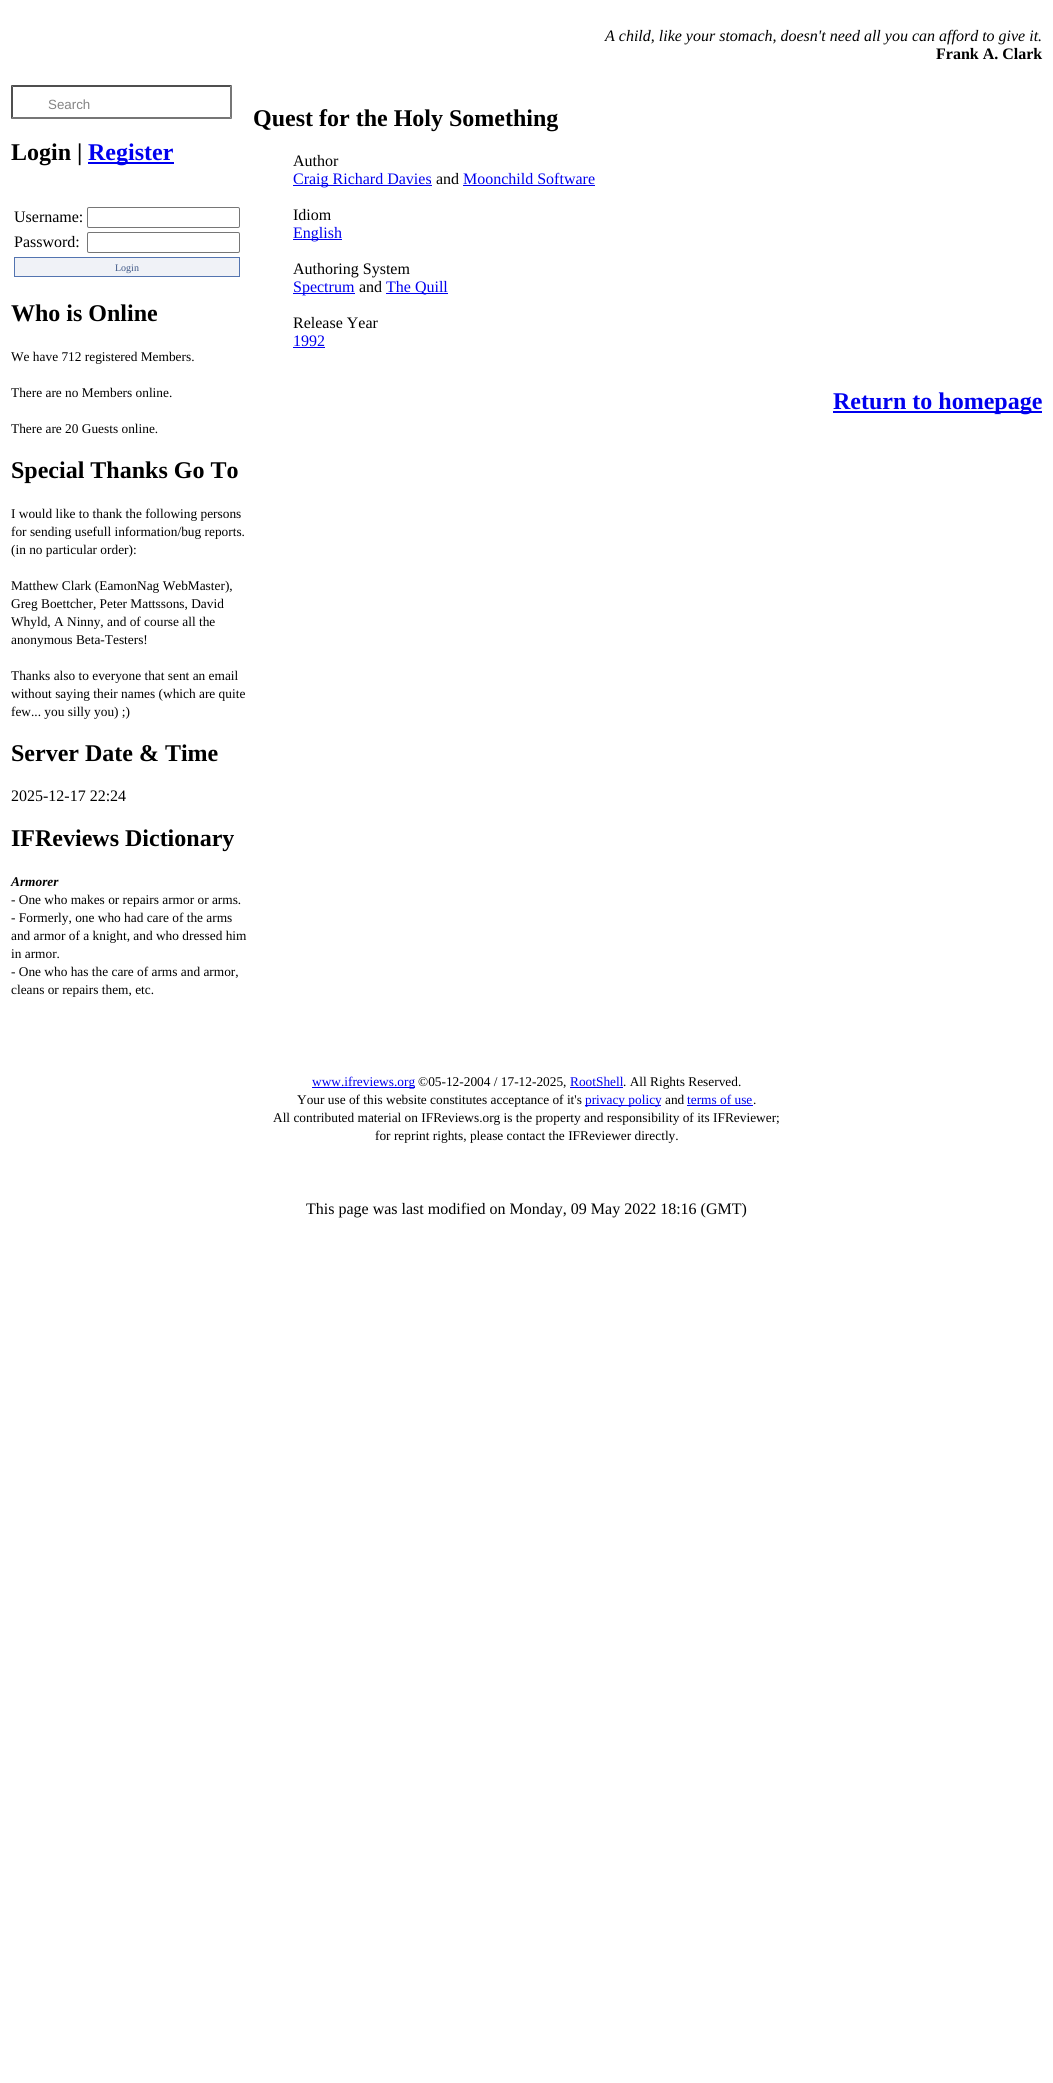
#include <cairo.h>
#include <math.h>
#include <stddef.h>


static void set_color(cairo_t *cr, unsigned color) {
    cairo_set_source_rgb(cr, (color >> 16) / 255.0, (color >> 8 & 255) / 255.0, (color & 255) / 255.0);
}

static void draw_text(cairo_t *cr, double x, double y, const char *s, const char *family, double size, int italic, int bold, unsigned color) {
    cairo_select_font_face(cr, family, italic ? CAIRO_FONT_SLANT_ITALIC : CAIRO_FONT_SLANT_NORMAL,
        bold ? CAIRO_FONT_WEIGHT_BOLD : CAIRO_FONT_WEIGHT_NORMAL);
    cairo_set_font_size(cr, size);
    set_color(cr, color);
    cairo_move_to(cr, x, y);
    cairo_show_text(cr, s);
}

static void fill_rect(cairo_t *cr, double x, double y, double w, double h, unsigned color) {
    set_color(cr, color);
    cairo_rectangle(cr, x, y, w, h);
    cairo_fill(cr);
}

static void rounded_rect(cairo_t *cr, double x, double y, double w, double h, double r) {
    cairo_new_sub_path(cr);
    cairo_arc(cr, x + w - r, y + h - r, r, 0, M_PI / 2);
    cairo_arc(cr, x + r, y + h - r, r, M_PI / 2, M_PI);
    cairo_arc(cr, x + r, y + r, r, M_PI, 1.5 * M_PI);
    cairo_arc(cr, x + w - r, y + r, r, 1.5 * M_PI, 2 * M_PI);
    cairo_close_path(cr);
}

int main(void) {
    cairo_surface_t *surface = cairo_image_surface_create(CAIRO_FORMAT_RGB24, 1053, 2083);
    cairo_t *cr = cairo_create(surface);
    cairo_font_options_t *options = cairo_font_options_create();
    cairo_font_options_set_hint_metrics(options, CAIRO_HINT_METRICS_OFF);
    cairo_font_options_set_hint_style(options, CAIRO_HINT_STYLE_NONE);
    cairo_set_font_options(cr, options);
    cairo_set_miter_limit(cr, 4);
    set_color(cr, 0xFFFFFF);
    cairo_paint(cr);
    draw_text(cr, 605, 41, "A child, like your stomach, doesn't need all you can afford to give it.", "Liberation Serif", 16, 1, 0, 0x000000);
    draw_text(cr, 936, 59, "Frank A. Clark", "Liberation Serif", 16, 0, 1, 0x000000);
    set_color(cr, 0x4F4F4F);
    cairo_new_path(cr);
    cairo_move_to(cr, 11, 85);
    cairo_line_to(cr, 232, 85);
    cairo_line_to(cr, 230, 87);
    cairo_line_to(cr, 13, 87);
    cairo_close_path(cr);
    cairo_fill(cr);
    set_color(cr, 0x767676);
    cairo_new_path(cr);
    cairo_move_to(cr, 232, 85);
    cairo_line_to(cr, 232, 119);
    cairo_line_to(cr, 230, 117);
    cairo_line_to(cr, 230, 87);
    cairo_close_path(cr);
    cairo_fill(cr);
    cairo_new_path(cr);
    cairo_move_to(cr, 232, 119);
    cairo_line_to(cr, 11, 119);
    cairo_line_to(cr, 13, 117);
    cairo_line_to(cr, 230, 117);
    cairo_close_path(cr);
    cairo_fill(cr);
    set_color(cr, 0x4F4F4F);
    cairo_new_path(cr);
    cairo_move_to(cr, 11, 119);
    cairo_line_to(cr, 11, 85);
    cairo_line_to(cr, 13, 87);
    cairo_line_to(cr, 13, 117);
    cairo_close_path(cr);
    cairo_fill(cr);
    draw_text(cr, 48, 109, "Search", "Liberation Sans", 13.35, 0, 0, 0x848484);
    draw_text(cr, 11, 160, "Login |", "Liberation Serif", 24, 0, 1, 0x000000);
    fill_rect(cr, 88, 162, 86, 2, 0x0000EE);
    draw_text(cr, 88, 160, "Register", "Liberation Serif", 24, 0, 1, 0x0000EE);
    draw_text(cr, 14, 222, "Username:", "Liberation Serif", 16, 0, 0, 0x000000);
    rounded_rect(cr, 87.5, 207.5, 152, 20, 1.5);
    set_color(cr, 0x767676);
    cairo_set_line_width(cr, 1);
    cairo_stroke(cr);
    draw_text(cr, 14, 247, "Password:", "Liberation Serif", 16, 0, 0, 0x000000);
    rounded_rect(cr, 87.5, 232.5, 152, 20, 1.5);
    set_color(cr, 0x767676);
    cairo_stroke(cr);
    set_color(cr, 0xF0F2F7);
    cairo_rectangle(cr, 14.5, 257.5, 225, 19);
    cairo_fill_preserve(cr);
    set_color(cr, 0x5374B0);
    cairo_stroke(cr);
    draw_text(cr, 115, 271, "Login", "Liberation Serif", 10, 0, 0, 0x3E5786);
    draw_text(cr, 11, 321, "Who is Online", "Liberation Serif", 24, 0, 1, 0x000000);
    draw_text(cr, 11, 361, "We have 712 registered Members.", "Liberation Serif", 13.35, 0, 0, 0x000000);
    draw_text(cr, 11, 397, "There are no Members online.", "Liberation Serif", 13.35, 0, 0, 0x000000);
    draw_text(cr, 11, 433, "There are 20 Guests online.", "Liberation Serif", 13.35, 0, 0, 0x000000);
    draw_text(cr, 11, 478, "Special Thanks Go To", "Liberation Serif", 24, 0, 1, 0x000000);
    draw_text(cr, 11, 518, "I would like to thank the following persons", "Liberation Serif", 13.35, 0, 0, 0x000000);
    draw_text(cr, 11, 536, "for sending usefull information/bug reports.", "Liberation Serif", 13.35, 0, 0, 0x000000);
    draw_text(cr, 11, 554, "(in no particular order):", "Liberation Serif", 13.35, 0, 0, 0x000000);
    draw_text(cr, 11, 590, "Matthew Clark (EamonNag WebMaster),", "Liberation Serif", 13.35, 0, 0, 0x000000);
    draw_text(cr, 11, 608, "Greg Boettcher, Peter Mattssons, David", "Liberation Serif", 13.35, 0, 0, 0x000000);
    draw_text(cr, 11, 626, "Whyld, A Ninny, and of course all the", "Liberation Serif", 13.35, 0, 0, 0x000000);
    draw_text(cr, 11, 644, "anonymous Beta-Testers!", "Liberation Serif", 13.35, 0, 0, 0x000000);
    draw_text(cr, 11, 680, "Thanks also to everyone that sent an email", "Liberation Serif", 13.35, 0, 0, 0x000000);
    draw_text(cr, 11, 698, "without saying their names (which are quite", "Liberation Serif", 13.35, 0, 0, 0x000000);
    draw_text(cr, 11, 716, "few... you silly you) ;)", "Liberation Serif", 13.35, 0, 0, 0x000000);
    draw_text(cr, 11, 761, "Server Date & Time", "Liberation Serif", 24, 0, 1, 0x000000);
    draw_text(cr, 11, 801, "2025-12-17 22:24", "Liberation Serif", 16, 0, 0, 0x000000);
    draw_text(cr, 11, 846, "IFReviews Dictionary", "Liberation Serif", 24, 0, 1, 0x000000);
    draw_text(cr, 11, 886, "Armorer", "Liberation Serif", 13.35, 1, 1, 0x000000);
    draw_text(cr, 11, 904, "- One who makes or repairs armor or arms.", "Liberation Serif", 13.35, 0, 0, 0x000000);
    draw_text(cr, 11, 922, "- Formerly, one who had care of the arms", "Liberation Serif", 13.35, 0, 0, 0x000000);
    draw_text(cr, 11, 940, "and armor of a knight, and who dressed him", "Liberation Serif", 13.35, 0, 0, 0x000000);
    draw_text(cr, 11, 958, "in armor.", "Liberation Serif", 13.35, 0, 0, 0x000000);
    draw_text(cr, 11, 976, "- One who has the care of arms and armor,", "Liberation Serif", 13.35, 0, 0, 0x000000);
    draw_text(cr, 11, 994, "cleans or repairs them, etc.", "Liberation Serif", 13.35, 0, 0, 0x000000);
    draw_text(cr, 253, 126, "Quest for the Holy Something", "Liberation Serif", 24, 0, 1, 0x000000);
    draw_text(cr, 293, 166, "Author", "Liberation Serif", 16, 0, 0, 0x000000);
    fill_rect(cr, 293, 185, 139, 1, 0x0000EE);
    draw_text(cr, 293, 184, "Craig Richard Davies", "Liberation Serif", 16, 0, 0, 0x0000EE);
    draw_text(cr, 436, 184, "and", "Liberation Serif", 16, 0, 0, 0x000000);
    draw_text(cr, 463, 184, "Moonchild Software", "Liberation Serif", 16, 0, 0, 0x0000EE);
    fill_rect(cr, 463, 185, 132, 1, 0x0000EE);
    draw_text(cr, 293, 220, "Idiom", "Liberation Serif", 16, 0, 0, 0x000000);
    fill_rect(cr, 293, 239, 49, 1, 0x0000EE);
    draw_text(cr, 293, 238, "English", "Liberation Serif", 16, 0, 0, 0x0000EE);
    draw_text(cr, 293, 274, "Authoring System", "Liberation Serif", 16, 0, 0, 0x000000);
    fill_rect(cr, 293, 293, 62, 1, 0x0000EE);
    draw_text(cr, 293, 292, "Spectrum", "Liberation Serif", 16, 0, 0, 0x0000EE);
    draw_text(cr, 359, 292, "and", "Liberation Serif", 16, 0, 0, 0x000000);
    fill_rect(cr, 386, 293, 62, 1, 0x0000EE);
    draw_text(cr, 386, 292, "The Quill", "Liberation Serif", 16, 0, 0, 0x0000EE);
    draw_text(cr, 293, 328, "Release Year", "Liberation Serif", 16, 0, 0, 0x000000);
    draw_text(cr, 293, 346, "1992", "Liberation Serif", 16, 0, 0, 0x0000EE);
    fill_rect(cr, 293, 347, 32, 1, 0x0000EE);
    fill_rect(cr, 833, 411, 209, 2, 0x0000EE);
    draw_text(cr, 833, 409, "Return to homepage", "Liberation Serif", 24, 0, 1, 0x0000EE);
    fill_rect(cr, 312, 1087, 103, 1, 0x0000EE);
    draw_text(cr, 312, 1086, "www.ifreviews.org", "Liberation Serif", 13.35, 0, 0, 0x0000EE);
    draw_text(cr, 418, 1086, "©05-12-2004 / 17-12-2025,", "Liberation Serif", 13.35, 0, 0, 0x000000);
    draw_text(cr, 570, 1086, "RootShell", "Liberation Serif", 13.35, 0, 0, 0x0000EE);
    draw_text(cr, 623, 1086, ". All Rights Reserved.", "Liberation Serif", 13.35, 0, 0, 0x000000);
    fill_rect(cr, 570, 1087, 53, 1, 0x0000EE);
    draw_text(cr, 297, 1104, "Your use of this website constitutes acceptance of it's", "Liberation Serif", 13.35, 0, 0, 0x000000);
    fill_rect(cr, 585, 1105, 76, 1, 0x0000EE);
    draw_text(cr, 585, 1104, "privacy policy", "Liberation Serif", 13.35, 0, 0, 0x0000EE);
    draw_text(cr, 665, 1104, "and", "Liberation Serif", 13.35, 0, 0, 0x000000);
    draw_text(cr, 687, 1104, "terms of use", "Liberation Serif", 13.35, 0, 0, 0x0000EE);
    draw_text(cr, 753, 1104, ".", "Liberation Serif", 13.35, 0, 0, 0x000000);
    fill_rect(cr, 687, 1105, 66, 1, 0x0000EE);
    draw_text(cr, 273, 1122, "All contributed material on IFReviews.org is the property and responsibility of its IFReviewer;", "Liberation Serif", 13.35, 0, 0, 0x000000);
    draw_text(cr, 375, 1140, "for reprint rights, please contact the IFReviewer directly.", "Liberation Serif", 13.35, 0, 0, 0x000000);
    draw_text(cr, 306, 1214, "This page was last modified on Monday, 09 May 2022 18:16 (GMT)", "Liberation Serif", 16, 0, 0, 0x000000);
    cairo_surface_write_to_png(surface, "output.png");
    cairo_font_options_destroy(options);
    cairo_destroy(cr);
    cairo_surface_destroy(surface);
    return 0;
}
